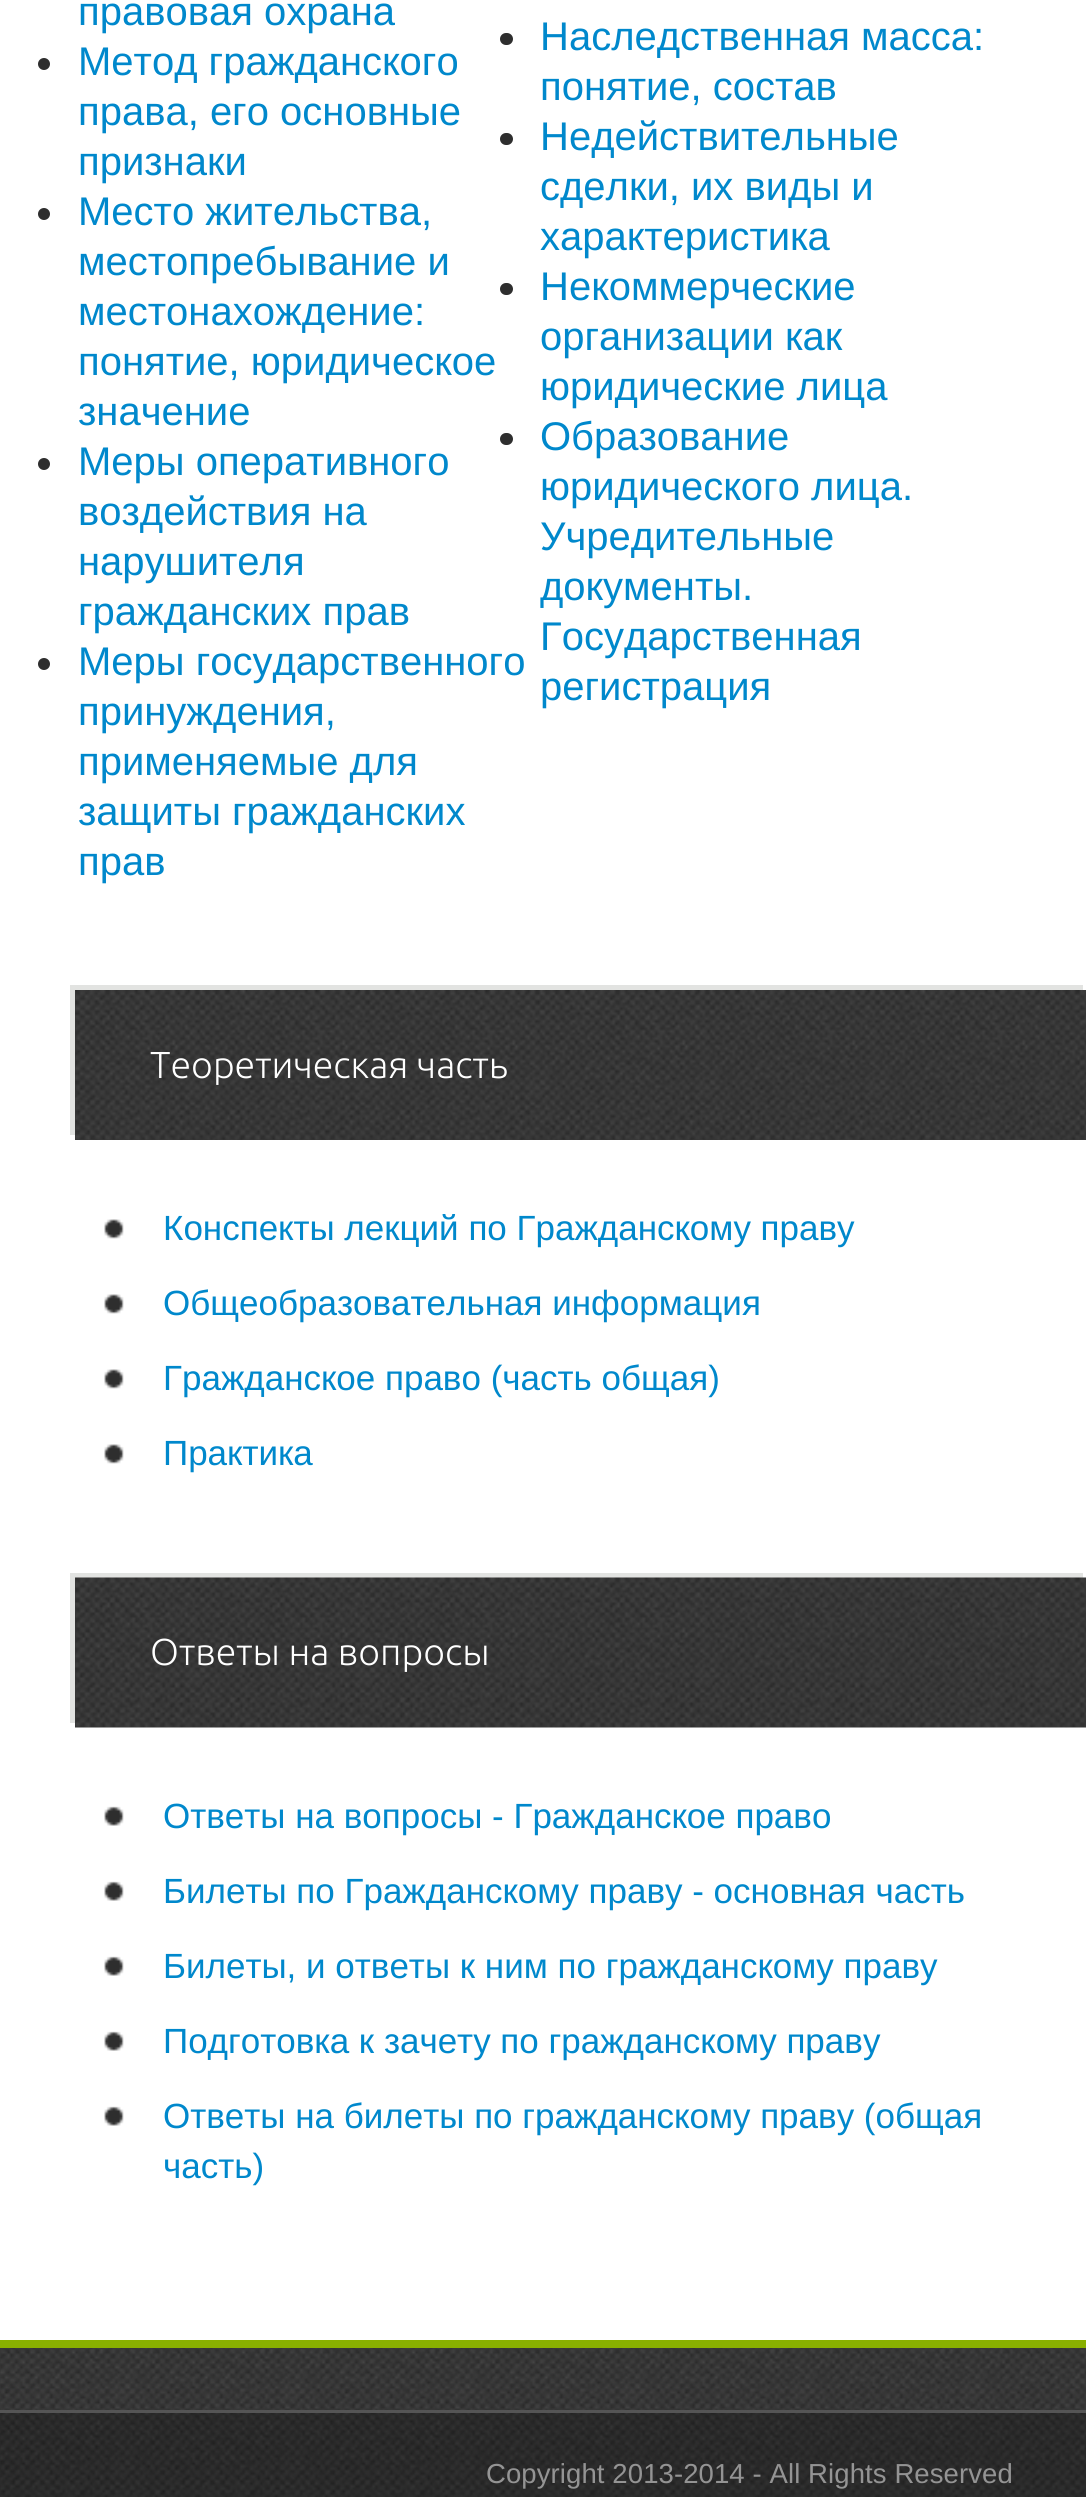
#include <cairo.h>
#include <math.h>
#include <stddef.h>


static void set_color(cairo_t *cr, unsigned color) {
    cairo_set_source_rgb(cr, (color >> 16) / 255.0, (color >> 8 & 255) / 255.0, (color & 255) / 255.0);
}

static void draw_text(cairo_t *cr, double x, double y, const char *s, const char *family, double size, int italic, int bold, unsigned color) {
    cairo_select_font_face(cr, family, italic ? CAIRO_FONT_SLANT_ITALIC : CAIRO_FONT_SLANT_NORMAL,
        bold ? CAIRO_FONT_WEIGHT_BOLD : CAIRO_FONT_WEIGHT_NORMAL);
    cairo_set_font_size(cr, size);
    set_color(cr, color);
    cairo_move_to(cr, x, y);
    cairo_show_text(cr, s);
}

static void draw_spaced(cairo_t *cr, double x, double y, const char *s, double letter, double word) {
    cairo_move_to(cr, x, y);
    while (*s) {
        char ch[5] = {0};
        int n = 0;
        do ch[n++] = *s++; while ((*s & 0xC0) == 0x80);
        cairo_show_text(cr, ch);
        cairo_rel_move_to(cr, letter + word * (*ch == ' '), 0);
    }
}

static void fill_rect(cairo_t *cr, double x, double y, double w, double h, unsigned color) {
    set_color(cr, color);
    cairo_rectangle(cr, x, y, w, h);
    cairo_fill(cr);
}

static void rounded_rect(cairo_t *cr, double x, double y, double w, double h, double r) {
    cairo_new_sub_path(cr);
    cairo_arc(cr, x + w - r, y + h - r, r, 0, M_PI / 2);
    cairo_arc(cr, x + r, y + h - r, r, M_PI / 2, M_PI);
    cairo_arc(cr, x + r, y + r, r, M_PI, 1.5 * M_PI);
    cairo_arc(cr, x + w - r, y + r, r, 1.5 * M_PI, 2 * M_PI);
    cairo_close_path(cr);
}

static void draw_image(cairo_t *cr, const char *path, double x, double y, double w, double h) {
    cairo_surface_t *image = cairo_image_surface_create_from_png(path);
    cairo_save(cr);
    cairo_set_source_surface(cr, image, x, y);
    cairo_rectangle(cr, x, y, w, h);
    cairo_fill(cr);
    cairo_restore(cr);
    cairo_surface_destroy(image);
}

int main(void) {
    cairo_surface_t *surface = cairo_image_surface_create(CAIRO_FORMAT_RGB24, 1086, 2497);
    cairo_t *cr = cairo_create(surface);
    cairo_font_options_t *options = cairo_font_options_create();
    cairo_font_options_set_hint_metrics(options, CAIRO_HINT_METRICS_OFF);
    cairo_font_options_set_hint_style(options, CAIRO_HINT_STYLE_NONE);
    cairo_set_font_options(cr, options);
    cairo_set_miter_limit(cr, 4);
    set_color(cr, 0xFFFFFF);
    cairo_paint(cr);
    draw_text(cr, 78, 25, "правовая охрана", "Liberation Sans", 40, 0, 0, 0x0088CC);
    set_color(cr, 0x2E2E2E);
    cairo_new_path(cr);
    cairo_arc(cr, 44, 64, 6, 0, 2 * M_PI);
    cairo_fill(cr);
    draw_text(cr, 78, 75, "Метод гражданского", "Liberation Sans", 40, 0, 0, 0x0088CC);
    draw_text(cr, 78, 125, "права, его основные", "Liberation Sans", 40, 0, 0, 0x0088CC);
    draw_text(cr, 78, 175, "признаки", "Liberation Sans", 40, 0, 0, 0x0088CC);
    set_color(cr, 0x2E2E2E);
    cairo_new_path(cr);
    cairo_arc(cr, 44, 214, 6, 0, 2 * M_PI);
    cairo_fill(cr);
    draw_text(cr, 78, 225, "Место жительства,", "Liberation Sans", 40, 0, 0, 0x0088CC);
    draw_text(cr, 78, 275, "местопребывание и", "Liberation Sans", 40, 0, 0, 0x0088CC);
    draw_text(cr, 78, 325, "местонахождение:", "Liberation Sans", 40, 0, 0, 0x0088CC);
    draw_text(cr, 78, 375, "понятие, юридическое", "Liberation Sans", 40, 0, 0, 0x0088CC);
    draw_text(cr, 78, 425, "значение", "Liberation Sans", 40, 0, 0, 0x0088CC);
    set_color(cr, 0x2E2E2E);
    cairo_new_path(cr);
    cairo_arc(cr, 44, 464, 6, 0, 2 * M_PI);
    cairo_fill(cr);
    draw_text(cr, 78, 475, "Меры оперативного", "Liberation Sans", 40, 0, 0, 0x0088CC);
    draw_text(cr, 78, 525, "воздействия на", "Liberation Sans", 40, 0, 0, 0x0088CC);
    draw_text(cr, 78, 575, "нарушителя", "Liberation Sans", 40, 0, 0, 0x0088CC);
    draw_text(cr, 78, 625, "гражданских прав", "Liberation Sans", 40, 0, 0, 0x0088CC);
    set_color(cr, 0x2E2E2E);
    cairo_new_path(cr);
    cairo_arc(cr, 44, 664, 6, 0, 2 * M_PI);
    cairo_fill(cr);
    draw_text(cr, 78, 675, "Меры государственного", "Liberation Sans", 40, 0, 0, 0x0088CC);
    draw_text(cr, 78, 725, "принуждения,", "Liberation Sans", 40, 0, 0, 0x0088CC);
    draw_text(cr, 78, 775, "применяемые для", "Liberation Sans", 40, 0, 0, 0x0088CC);
    draw_text(cr, 78, 825, "защиты гражданских", "Liberation Sans", 40, 0, 0, 0x0088CC);
    draw_text(cr, 78, 875, "прав", "Liberation Sans", 40, 0, 0, 0x0088CC);
    set_color(cr, 0x2E2E2E);
    rounded_rect(cr, 500, 33, 13, 12, 6);
    cairo_fill(cr);
    draw_text(cr, 540, 50, "Наследственная масса:", "Liberation Sans", 40, 0, 0, 0x0088CC);
    draw_text(cr, 540, 100, "понятие, состав", "Liberation Sans", 40, 0, 0, 0x0088CC);
    set_color(cr, 0x2E2E2E);
    rounded_rect(cr, 500, 133, 13, 12, 6);
    cairo_fill(cr);
    draw_text(cr, 540, 150, "Недействительные", "Liberation Sans", 40, 0, 0, 0x0088CC);
    draw_text(cr, 540, 200, "сделки, их виды и", "Liberation Sans", 40, 0, 0, 0x0088CC);
    draw_text(cr, 540, 250, "характеристика", "Liberation Sans", 40, 0, 0, 0x0088CC);
    set_color(cr, 0x2E2E2E);
    rounded_rect(cr, 500, 283, 13, 12, 6);
    cairo_fill(cr);
    draw_text(cr, 540, 300, "Некоммерческие", "Liberation Sans", 40, 0, 0, 0x0088CC);
    draw_text(cr, 540, 350, "организации как", "Liberation Sans", 40, 0, 0, 0x0088CC);
    draw_text(cr, 540, 400, "юридические лица", "Liberation Sans", 40, 0, 0, 0x0088CC);
    set_color(cr, 0x2E2E2E);
    rounded_rect(cr, 500, 433, 13, 12, 6);
    cairo_fill(cr);
    draw_text(cr, 540, 450, "Образование", "Liberation Sans", 40, 0, 0, 0x0088CC);
    draw_text(cr, 540, 500, "юридического лица.", "Liberation Sans", 40, 0, 0, 0x0088CC);
    draw_text(cr, 540, 550, "Учредительные", "Liberation Sans", 40, 0, 0, 0x0088CC);
    draw_text(cr, 540, 600, "документы.", "Liberation Sans", 40, 0, 0, 0x0088CC);
    draw_text(cr, 540, 650, "Государственная", "Liberation Sans", 40, 0, 0, 0x0088CC);
    draw_text(cr, 540, 700, "регистрация", "Liberation Sans", 40, 0, 0, 0x0088CC);
    set_color(cr, 0xE2E3E1);
    cairo_new_path(cr);
    cairo_move_to(cr, 70, 985);
    cairo_line_to(cr, 70, 1135);
    cairo_line_to(cr, 75, 1135);
    cairo_line_to(cr, 75, 990);
    cairo_line_to(cr, 1083, 990);
    cairo_line_to(cr, 1083, 985);
    cairo_close_path(cr);
    cairo_fill(cr);
    draw_image(cr, "assets/img1.png", 75, 990, 1011, 150);
    draw_text(cr, 150, 1078, "Теоретическая часть", "Ubuntu Light", 37.5, 0, 0, 0xFFFFFF);
    draw_image(cr, "assets/img2.png", 104, 1219, 20, 20);
    draw_text(cr, 163, 1240, "Конспекты лекций по Гражданскому праву", "Liberation Sans", 35, 0, 0, 0x0088CC);
    draw_image(cr, "assets/img2.png", 104, 1294, 20, 20);
    draw_text(cr, 163, 1315, "Общеобразовательная информация", "Liberation Sans", 35, 0, 0, 0x0088CC);
    draw_image(cr, "assets/img2.png", 104, 1369, 20, 20);
    draw_text(cr, 163, 1390, "Гражданское право (часть общая)", "Liberation Sans", 35, 0, 0, 0x0088CC);
    draw_image(cr, "assets/img2.png", 104, 1444, 20, 20);
    draw_text(cr, 163, 1465, "Практика", "Liberation Sans", 35, 0, 0, 0x0088CC);
    set_color(cr, 0xE2E3E1);
    cairo_new_path(cr);
    cairo_move_to(cr, 70, 1573);
    cairo_line_to(cr, 70, 1723);
    cairo_line_to(cr, 75, 1723);
    cairo_line_to(cr, 75, 1578);
    cairo_line_to(cr, 1083, 1578);
    cairo_line_to(cr, 1083, 1573);
    cairo_close_path(cr);
    cairo_fill(cr);
    draw_image(cr, "assets/img3.png", 75, 1577, 1011, 151);
    draw_text(cr, 150, 1665, "Ответы на вопросы", "Ubuntu Light", 37.5, 0, 0, 0xFFFFFF);
    draw_image(cr, "assets/img4.png", 104, 1806, 20, 20);
    draw_text(cr, 163, 1828, "Ответы на вопросы - Гражданское право", "Liberation Sans", 35, 0, 0, 0x0088CC);
    draw_image(cr, "assets/img4.png", 104, 1881, 20, 20);
    draw_text(cr, 163, 1903, "Билеты по Гражданскому праву - основная часть", "Liberation Sans", 35, 0, 0, 0x0088CC);
    draw_image(cr, "assets/img4.png", 104, 1956, 20, 20);
    draw_text(cr, 163, 1978, "Билеты, и ответы к ним по гражданскому праву", "Liberation Sans", 35, 0, 0, 0x0088CC);
    draw_image(cr, "assets/img4.png", 104, 2031, 20, 20);
    draw_text(cr, 163, 2053, "Подготовка к зачету по гражданскому праву", "Liberation Sans", 35, 0, 0, 0x0088CC);
    draw_image(cr, "assets/img5.png", 104, 2106, 20, 20);
    draw_text(cr, 163, 2128, "Ответы на билеты по гражданскому праву (общая", "Liberation Sans", 35, 0, 0, 0x0088CC);
    draw_text(cr, 163, 2178, "часть)", "Liberation Sans", 35, 0, 0, 0x0088CC);
    draw_image(cr, "assets/img6.png", 0, 2348, 1086, 62);
    fill_rect(cr, 0, 2340, 1086, 8, 0x89B000);
    fill_rect(cr, 0, 2410, 1086, 3, 0x555555);
    draw_image(cr, "assets/img7.png", 0, 2413, 1086, 84);
    cairo_set_font_size(cr, 27.5);
    set_color(cr, 0x949494);
    draw_spaced(cr, 486, 2483, "Copyright 2013-2014 - All Rights Reserved", 0.1, 0);
    cairo_surface_write_to_png(surface, "output.png");
    cairo_font_options_destroy(options);
    cairo_destroy(cr);
    cairo_surface_destroy(surface);
    return 0;
}
